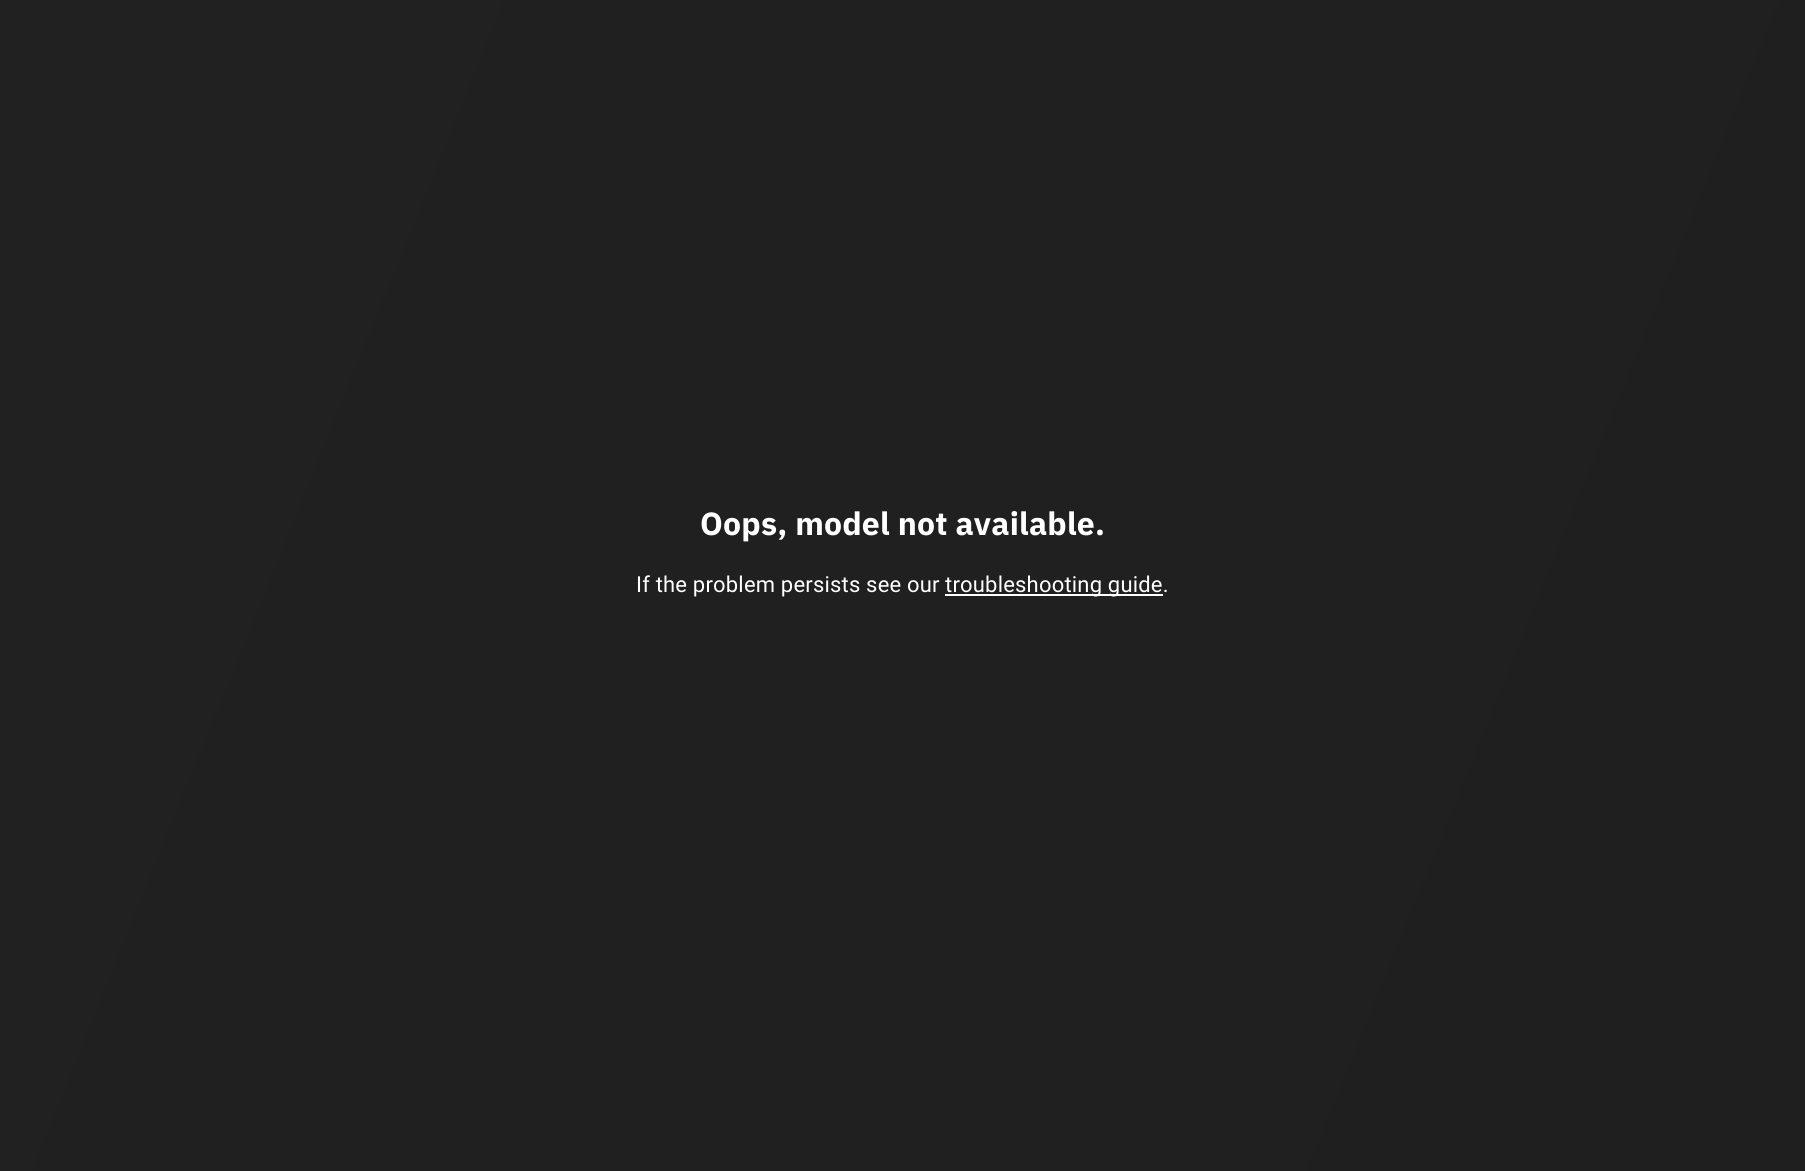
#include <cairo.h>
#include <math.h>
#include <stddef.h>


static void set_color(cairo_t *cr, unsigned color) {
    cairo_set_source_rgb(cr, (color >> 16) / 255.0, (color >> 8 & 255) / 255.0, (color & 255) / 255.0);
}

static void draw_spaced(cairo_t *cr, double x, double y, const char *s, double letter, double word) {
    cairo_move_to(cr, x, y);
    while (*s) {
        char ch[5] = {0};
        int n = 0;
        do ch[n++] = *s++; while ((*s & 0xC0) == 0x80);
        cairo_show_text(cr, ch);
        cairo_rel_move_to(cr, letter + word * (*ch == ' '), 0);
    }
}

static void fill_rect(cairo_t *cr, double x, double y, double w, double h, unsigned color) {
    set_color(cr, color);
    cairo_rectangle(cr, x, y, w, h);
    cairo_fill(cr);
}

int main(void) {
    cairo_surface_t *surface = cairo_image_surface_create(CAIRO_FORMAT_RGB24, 1805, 1171);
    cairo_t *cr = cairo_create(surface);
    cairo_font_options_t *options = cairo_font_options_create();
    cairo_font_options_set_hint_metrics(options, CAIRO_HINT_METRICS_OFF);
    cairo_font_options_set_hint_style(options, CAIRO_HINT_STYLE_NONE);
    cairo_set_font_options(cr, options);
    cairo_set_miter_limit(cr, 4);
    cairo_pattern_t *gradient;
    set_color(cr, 0xFFFFFF);
    cairo_paint(cr);
    gradient = cairo_pattern_create_linear(-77, 190, 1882, 981);
    cairo_pattern_add_color_stop_rgba(gradient, 0, 0.129, 0.129, 0.129, 1);
    cairo_pattern_add_color_stop_rgba(gradient, 1, 0.122, 0.122, 0.122, 1);
    cairo_set_source(cr, gradient);
    cairo_pattern_destroy(gradient);
    cairo_rectangle(cr, 0, 0, 1805, 1171);
    cairo_fill(cr);
    cairo_select_font_face(cr, "IBM Plex Sans", CAIRO_FONT_SLANT_NORMAL, CAIRO_FONT_WEIGHT_BOLD);
    cairo_set_font_size(cr, 32);
    set_color(cr, 0xFFFFFF);
    draw_spaced(cr, 700, 535, "Oops, model not available.", 0.2, 0);
    cairo_select_font_face(cr, "Roboto", CAIRO_FONT_SLANT_NORMAL, CAIRO_FONT_WEIGHT_NORMAL);
    cairo_set_font_size(cr, 22);
    draw_spaced(cr, 636, 592, "If the problem persists see our", 0.2, 0);
    fill_rect(cr, 945, 594, 218, 2, 0xFFFFFF);
    draw_spaced(cr, 945, 592, "troubleshooting guide.", 0.2, 0);
    cairo_surface_write_to_png(surface, "output.png");
    cairo_font_options_destroy(options);
    cairo_destroy(cr);
    cairo_surface_destroy(surface);
    return 0;
}
